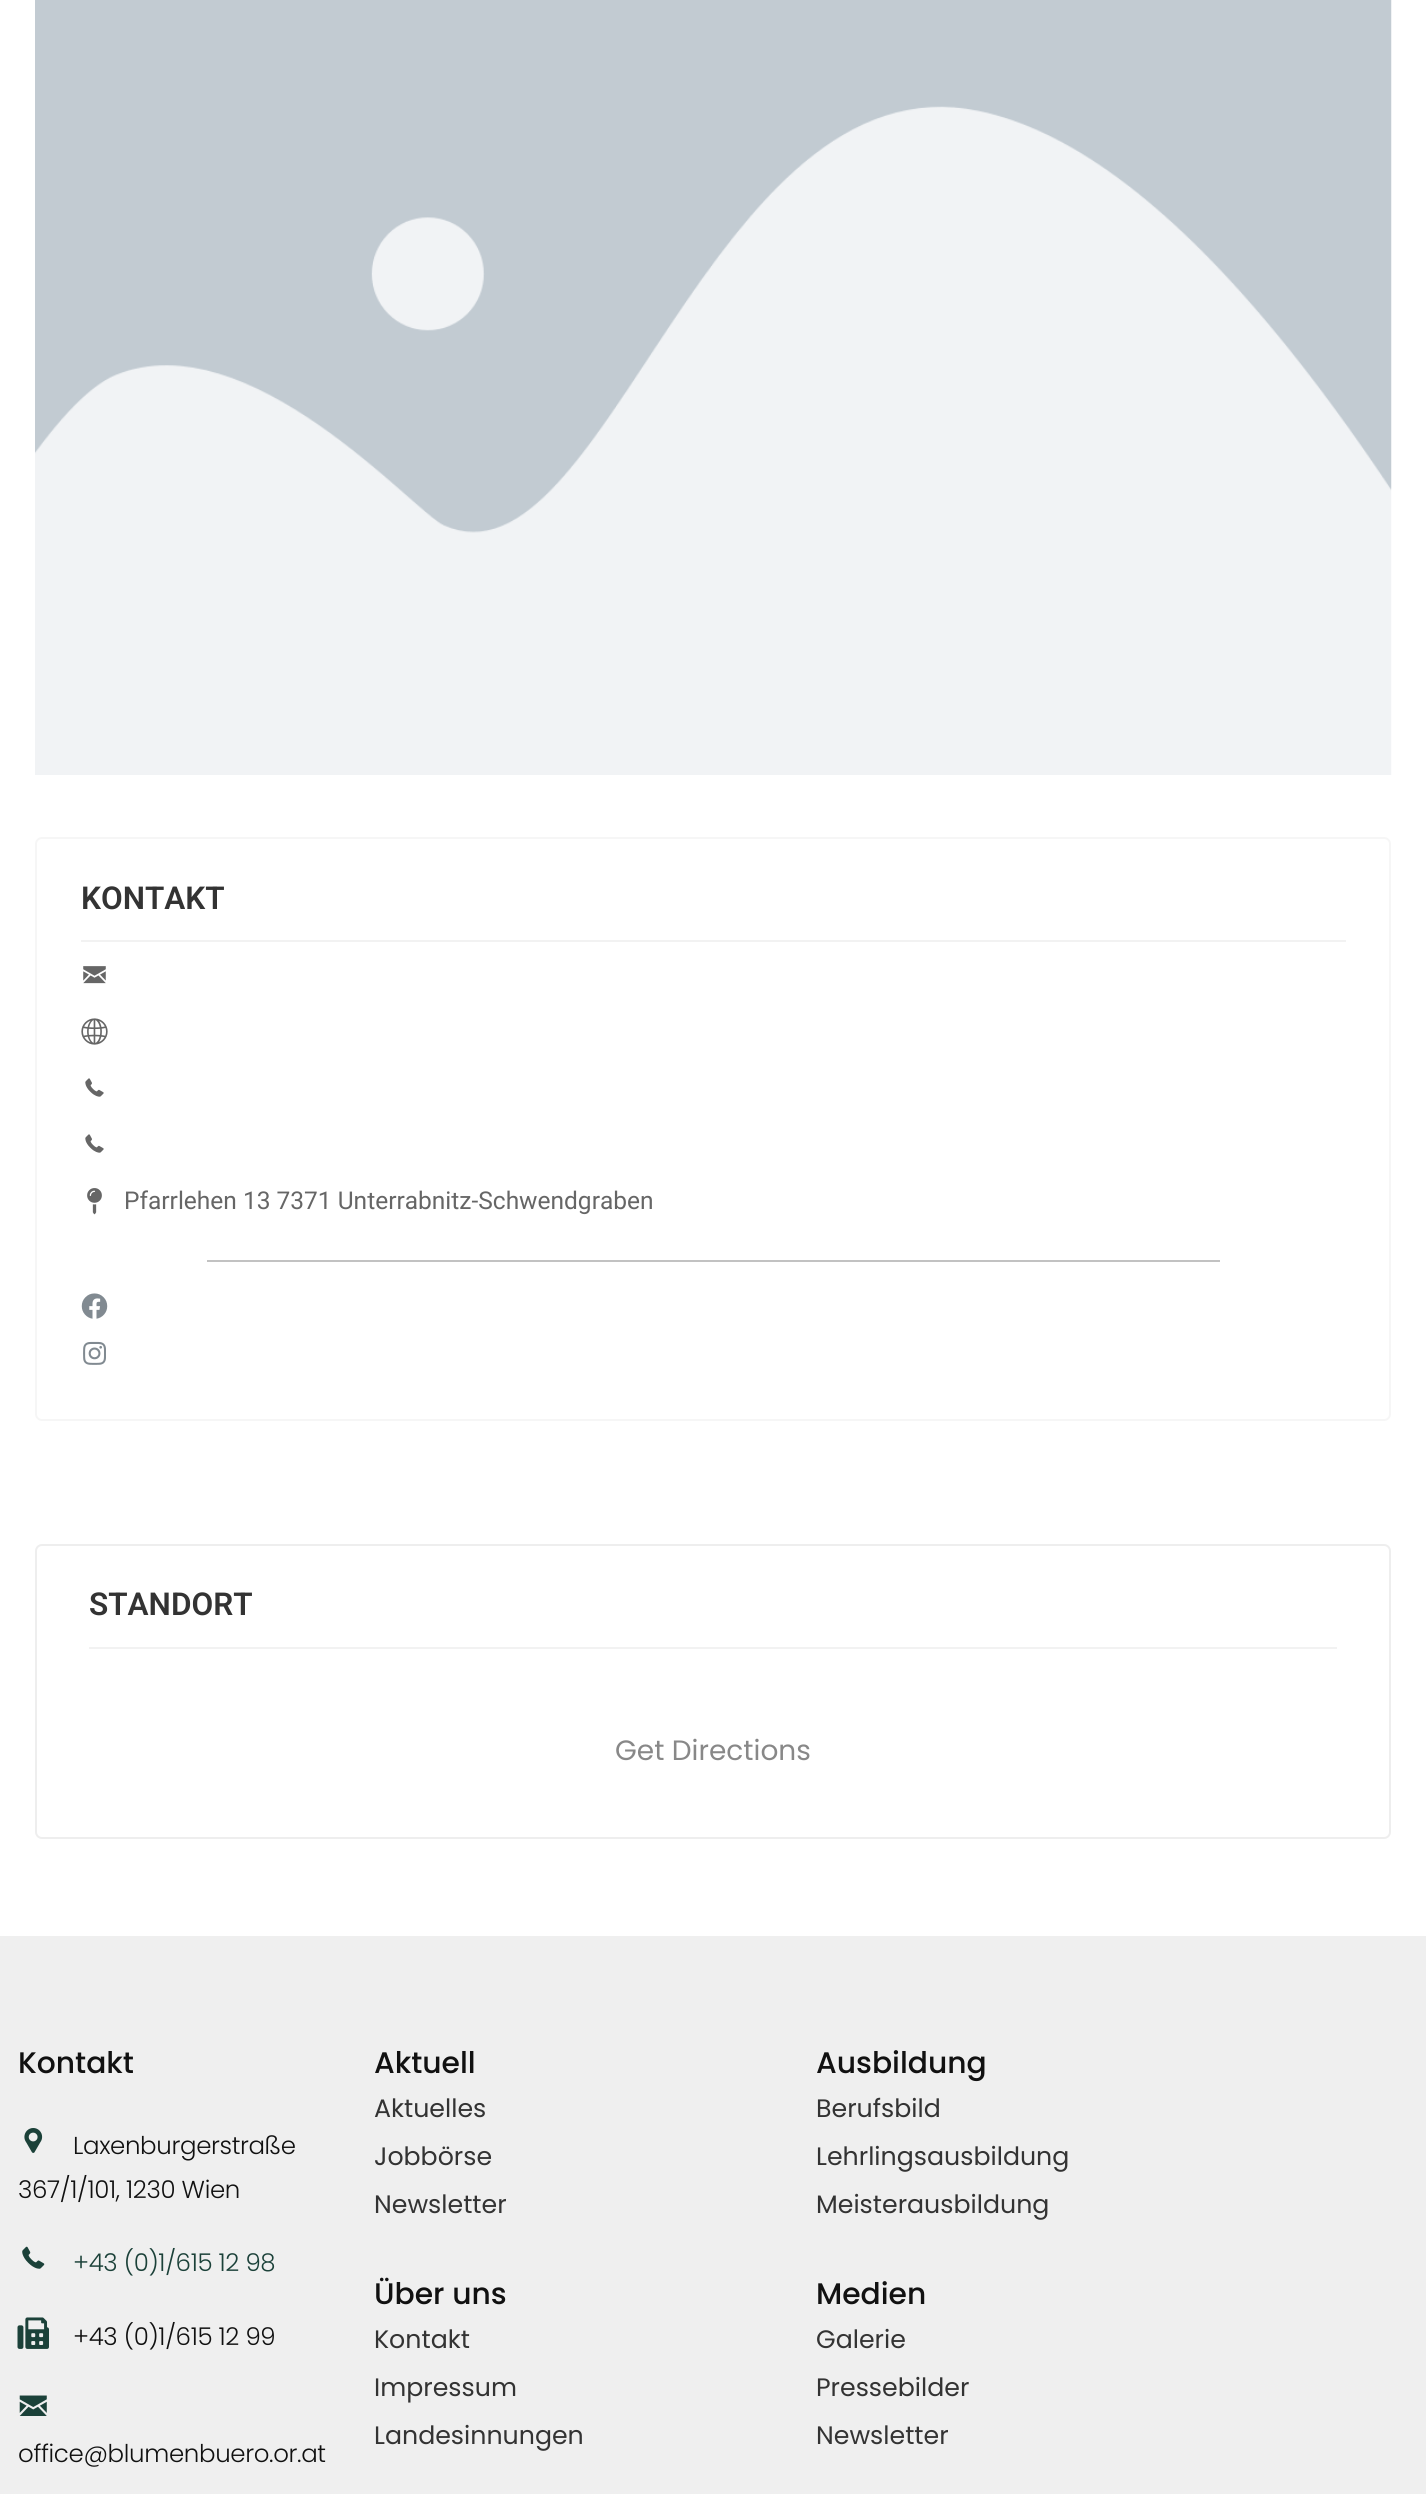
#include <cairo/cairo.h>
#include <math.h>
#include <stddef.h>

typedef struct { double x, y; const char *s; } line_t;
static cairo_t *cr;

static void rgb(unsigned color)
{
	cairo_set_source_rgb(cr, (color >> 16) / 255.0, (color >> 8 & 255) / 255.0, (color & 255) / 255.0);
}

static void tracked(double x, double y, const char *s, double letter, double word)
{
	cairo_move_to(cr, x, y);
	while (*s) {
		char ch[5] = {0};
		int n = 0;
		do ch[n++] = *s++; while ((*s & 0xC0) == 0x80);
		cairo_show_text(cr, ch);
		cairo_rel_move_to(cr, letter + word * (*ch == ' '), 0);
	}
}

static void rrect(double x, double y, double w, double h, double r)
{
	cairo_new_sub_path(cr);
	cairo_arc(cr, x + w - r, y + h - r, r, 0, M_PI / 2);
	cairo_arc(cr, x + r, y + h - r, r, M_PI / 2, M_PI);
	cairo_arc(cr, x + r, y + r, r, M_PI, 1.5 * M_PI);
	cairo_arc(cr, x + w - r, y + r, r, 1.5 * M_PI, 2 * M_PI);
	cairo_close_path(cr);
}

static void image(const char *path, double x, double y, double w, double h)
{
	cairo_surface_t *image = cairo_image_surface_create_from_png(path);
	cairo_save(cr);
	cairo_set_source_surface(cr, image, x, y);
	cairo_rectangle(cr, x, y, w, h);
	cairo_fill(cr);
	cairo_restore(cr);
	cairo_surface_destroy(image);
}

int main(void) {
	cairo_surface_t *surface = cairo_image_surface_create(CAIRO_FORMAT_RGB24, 1426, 2494);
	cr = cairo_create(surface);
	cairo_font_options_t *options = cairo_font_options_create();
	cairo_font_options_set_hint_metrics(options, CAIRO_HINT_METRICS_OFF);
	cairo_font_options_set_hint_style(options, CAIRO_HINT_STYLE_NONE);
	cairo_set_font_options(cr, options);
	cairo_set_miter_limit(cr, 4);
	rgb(0xffffff);
	cairo_paint(cr);
	image("img/1.png", 35, 0, 1357, 775);
	rrect(36, 838, 1354, 582, 6);
	rgb(0xf6f6f6);
	cairo_stroke(cr);
	rgb(0xf2f2f2);
	cairo_rectangle(cr, 81, 940, 1265, 2);
	cairo_fill(cr);
	image("img/2.png", 83, 966, 23, 18);
	image("img/3.png", 81, 1018, 27, 27);
	image("img/4.png", 85, 1078, 19, 19);
	image("img/4.png", 85, 1134, 19, 19);
	image("img/5.png", 87, 1188, 15, 27);
	rgb(0xc2c2c2);
	cairo_rectangle(cr, 207, 1260, 1013, 2);
	cairo_fill(cr);
	image("img/6.png", 81, 1293, 27, 26);
	image("img/7.png", 83, 1341, 23, 24);
	rrect(36, 1545, 1354, 293, 6);
	rgb(0xeeeeee);
	cairo_stroke(cr);
	rgb(0xf2f2f2);
	cairo_rectangle(cr, 89, 1647, 1248, 2);
	cairo_fill(cr);
	rgb(0xefefef);
	cairo_rectangle(cr, 0, 1936, 1426, 558);
	cairo_fill(cr);
	image("img/8.png", 24, 2128, 19, 25);
	image("img/9.png", 22, 2246, 23, 23);
	image("img/10.png", 17, 2317, 32, 32);
	image("img/11.png", 19, 2395, 28, 21);
	cairo_select_font_face(cr, "Roboto SemiBold", CAIRO_FONT_SLANT_NORMAL, CAIRO_FONT_WEIGHT_NORMAL);
	cairo_set_font_size(cr, 31.5);
	rgb(0x333333);
	cairo_move_to(cr, 81, 909);
	cairo_show_text(cr, "KONTAKT");
	cairo_select_font_face(cr, "Roboto", CAIRO_FONT_SLANT_NORMAL, CAIRO_FONT_WEIGHT_NORMAL);
	cairo_set_font_size(cr, 24.5);
	rgb(0x666666);
	cairo_move_to(cr, 124, 1209);
	cairo_show_text(cr, "Pfarrlehen 13 7371 Unterrabnitz-Schwendgraben");
	cairo_select_font_face(cr, "Roboto SemiBold", CAIRO_FONT_SLANT_NORMAL, CAIRO_FONT_WEIGHT_NORMAL);
	cairo_set_font_size(cr, 31.5);
	rgb(0x333333);
	cairo_move_to(cr, 89, 1615);
	cairo_show_text(cr, "STANDORT");
	cairo_select_font_face(cr, "Poppins", CAIRO_FONT_SLANT_NORMAL, CAIRO_FONT_WEIGHT_NORMAL);
	cairo_set_font_size(cr, 28);
	rgb(0x888888);
	cairo_move_to(cr, 615, 1760);
	cairo_show_text(cr, "Get Directions");
	cairo_select_font_face(cr, "Poppins Medium", CAIRO_FONT_SLANT_NORMAL, CAIRO_FONT_WEIGHT_NORMAL);
	cairo_set_font_size(cr, 29.75);
	rgb(0x111111);
	cairo_move_to(cr, 18, 2073);
	cairo_show_text(cr, "Kontakt");
	cairo_select_font_face(cr, "Poppins Light", CAIRO_FONT_SLANT_NORMAL, CAIRO_FONT_WEIGHT_NORMAL);
	cairo_set_font_size(cr, 24.5);
	tracked(73, 2154, "Laxenburgerstraße", -0.35, 0);
	tracked(18, 2198, "367/1/101, 1230 Wien", -0.35, 0);
	rgb(0x1b4139);
	tracked(73, 2271, "+43 (0)1/615 12 98", -0.35, 0);
	rgb(0x111111);
	tracked(73, 2345, "+43 (0)1/615 12 99", -0.35, 0);
	tracked(18, 2462, "office@blumenbuero.or.at", -0.35, 0);
	cairo_select_font_face(cr, "Poppins Medium", CAIRO_FONT_SLANT_NORMAL, CAIRO_FONT_WEIGHT_NORMAL);
	cairo_set_font_size(cr, 29.75);
	cairo_move_to(cr, 374, 2073);
	cairo_show_text(cr, "Aktuell");
	cairo_select_font_face(cr, "Poppins", CAIRO_FONT_SLANT_NORMAL, CAIRO_FONT_WEIGHT_NORMAL);
	cairo_set_font_size(cr, 25.25);
	rgb(0x333333);
	{
		static const line_t items[] = {
			{374, 2117, "Aktuelles"},
			{374, 2165, "Jobbörse"},
			{374, 2213, "Newsletter"},
		};
		for (size_t i = 0; i < sizeof items / sizeof *items; i++) {
			cairo_move_to(cr, items[i].x, items[i].y);
			cairo_show_text(cr, items[i].s);
		}
	}
	cairo_select_font_face(cr, "Poppins Medium", CAIRO_FONT_SLANT_NORMAL, CAIRO_FONT_WEIGHT_NORMAL);
	cairo_set_font_size(cr, 29.75);
	rgb(0x111111);
	cairo_move_to(cr, 374, 2304);
	cairo_show_text(cr, "Über uns");
	cairo_select_font_face(cr, "Poppins", CAIRO_FONT_SLANT_NORMAL, CAIRO_FONT_WEIGHT_NORMAL);
	cairo_set_font_size(cr, 25.25);
	rgb(0x333333);
	{
		static const line_t items[] = {
			{374, 2348, "Kontakt"},
			{374, 2396, "Impressum"},
			{374, 2444, "Landesinnungen"},
		};
		for (size_t i = 0; i < sizeof items / sizeof *items; i++) {
			cairo_move_to(cr, items[i].x, items[i].y);
			cairo_show_text(cr, items[i].s);
		}
	}
	cairo_select_font_face(cr, "Poppins Medium", CAIRO_FONT_SLANT_NORMAL, CAIRO_FONT_WEIGHT_NORMAL);
	cairo_set_font_size(cr, 29.75);
	rgb(0x111111);
	cairo_move_to(cr, 816, 2073);
	cairo_show_text(cr, "Ausbildung");
	cairo_select_font_face(cr, "Poppins", CAIRO_FONT_SLANT_NORMAL, CAIRO_FONT_WEIGHT_NORMAL);
	cairo_set_font_size(cr, 25.25);
	rgb(0x333333);
	{
		static const line_t items[] = {
			{816, 2117, "Berufsbild"},
			{816, 2165, "Lehrlingsausbildung"},
			{816, 2213, "Meisterausbildung"},
		};
		for (size_t i = 0; i < sizeof items / sizeof *items; i++) {
			cairo_move_to(cr, items[i].x, items[i].y);
			cairo_show_text(cr, items[i].s);
		}
	}
	cairo_select_font_face(cr, "Poppins Medium", CAIRO_FONT_SLANT_NORMAL, CAIRO_FONT_WEIGHT_NORMAL);
	cairo_set_font_size(cr, 29.75);
	rgb(0x111111);
	cairo_move_to(cr, 816, 2304);
	cairo_show_text(cr, "Medien");
	cairo_select_font_face(cr, "Poppins", CAIRO_FONT_SLANT_NORMAL, CAIRO_FONT_WEIGHT_NORMAL);
	cairo_set_font_size(cr, 25.25);
	rgb(0x333333);
	{
		static const line_t items[] = {
			{816, 2348, "Galerie"},
			{816, 2396, "Pressebilder"},
			{816, 2444, "Newsletter"},
		};
		for (size_t i = 0; i < sizeof items / sizeof *items; i++) {
			cairo_move_to(cr, items[i].x, items[i].y);
			cairo_show_text(cr, items[i].s);
		}
	}
	cairo_surface_write_to_png(surface, "page.png");
	cairo_font_options_destroy(options);
	cairo_destroy(cr);
	cairo_surface_destroy(surface);
	return 0;
}
